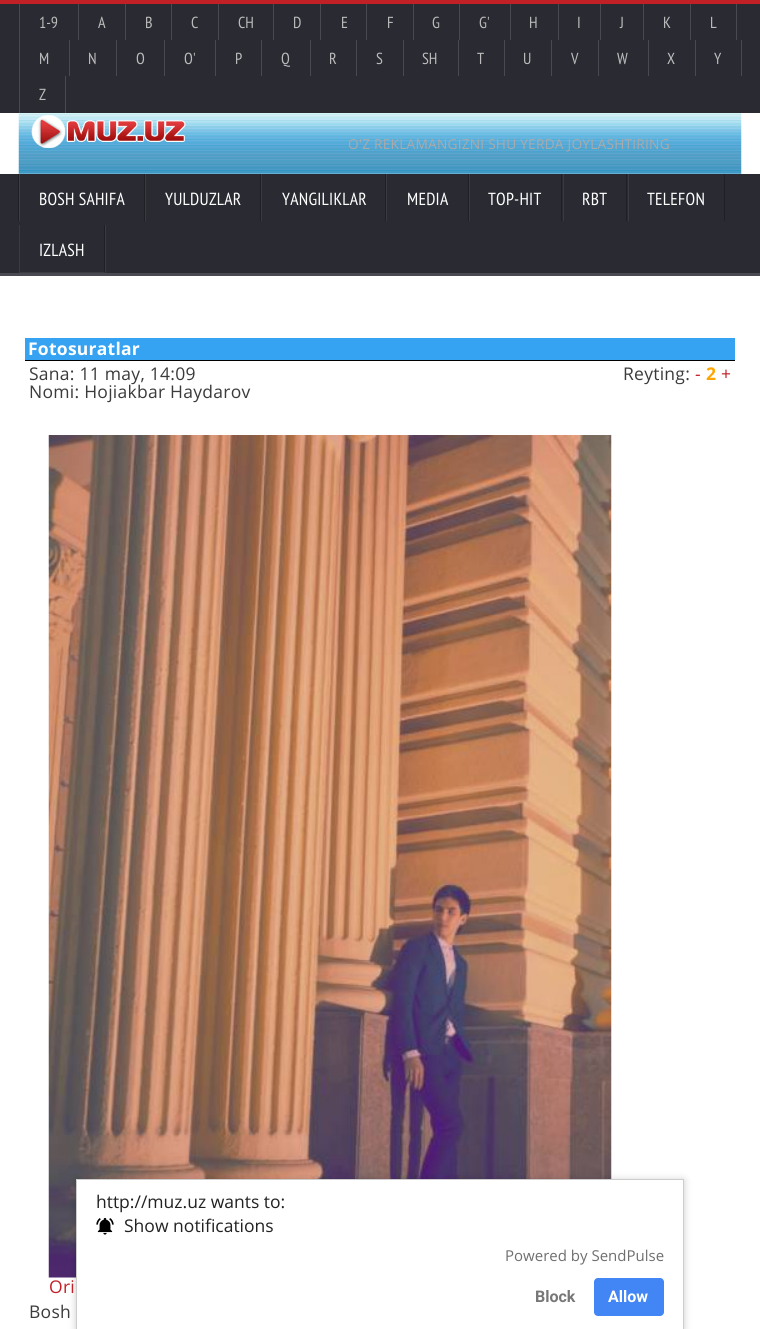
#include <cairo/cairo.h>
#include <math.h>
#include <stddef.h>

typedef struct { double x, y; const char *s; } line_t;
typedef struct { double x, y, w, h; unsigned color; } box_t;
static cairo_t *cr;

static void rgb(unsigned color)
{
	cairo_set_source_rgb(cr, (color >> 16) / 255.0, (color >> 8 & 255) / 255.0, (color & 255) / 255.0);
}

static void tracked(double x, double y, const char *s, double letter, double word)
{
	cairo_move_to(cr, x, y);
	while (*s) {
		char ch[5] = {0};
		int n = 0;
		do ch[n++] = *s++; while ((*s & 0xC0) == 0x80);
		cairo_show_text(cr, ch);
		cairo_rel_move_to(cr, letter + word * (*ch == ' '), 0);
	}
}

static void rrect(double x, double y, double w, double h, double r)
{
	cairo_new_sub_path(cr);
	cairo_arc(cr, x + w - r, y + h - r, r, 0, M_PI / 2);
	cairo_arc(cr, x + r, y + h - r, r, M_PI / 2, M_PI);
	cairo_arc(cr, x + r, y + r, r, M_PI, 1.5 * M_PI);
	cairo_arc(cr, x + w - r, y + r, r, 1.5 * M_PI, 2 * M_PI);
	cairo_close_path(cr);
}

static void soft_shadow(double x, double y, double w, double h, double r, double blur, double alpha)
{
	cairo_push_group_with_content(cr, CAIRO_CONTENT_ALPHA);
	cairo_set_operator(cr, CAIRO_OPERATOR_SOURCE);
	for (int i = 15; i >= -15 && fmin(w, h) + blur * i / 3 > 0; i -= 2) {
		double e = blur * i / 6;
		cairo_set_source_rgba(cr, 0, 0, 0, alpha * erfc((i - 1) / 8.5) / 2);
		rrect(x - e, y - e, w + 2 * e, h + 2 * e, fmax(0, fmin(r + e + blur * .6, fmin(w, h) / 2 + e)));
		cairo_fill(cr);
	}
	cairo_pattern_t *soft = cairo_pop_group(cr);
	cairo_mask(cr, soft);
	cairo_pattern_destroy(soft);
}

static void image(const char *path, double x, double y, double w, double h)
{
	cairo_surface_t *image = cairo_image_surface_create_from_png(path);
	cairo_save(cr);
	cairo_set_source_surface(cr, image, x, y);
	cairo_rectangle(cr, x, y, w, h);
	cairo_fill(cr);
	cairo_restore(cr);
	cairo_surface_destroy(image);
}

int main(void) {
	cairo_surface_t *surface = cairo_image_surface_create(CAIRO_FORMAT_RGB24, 760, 1329);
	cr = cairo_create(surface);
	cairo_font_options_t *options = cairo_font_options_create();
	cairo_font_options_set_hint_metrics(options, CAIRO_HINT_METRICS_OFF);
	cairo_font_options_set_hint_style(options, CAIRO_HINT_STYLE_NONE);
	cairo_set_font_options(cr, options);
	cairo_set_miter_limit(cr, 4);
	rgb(0xffffff);
	cairo_paint(cr);
	{
		static const box_t items[] = {
			{0, 4, 760, 109, 0x292a32},
			{0, 0, 760, 4, 0xc12026},
			{19, 4, 1, 109, 0x494a51},
			{78, 4, 1, 36, 0x494a51},
			{125, 4, 1, 36, 0x494a51},
			{171, 4, 1, 36, 0x494a51},
			{218, 4, 1, 36, 0x494a51},
			{273, 4, 1, 36, 0x494a51},
			{320, 4, 1, 36, 0x494a51},
			{366, 4, 1, 36, 0x494a51},
			{413, 4, 1, 36, 0x494a51},
			{459, 4, 1, 36, 0x494a51},
			{510, 4, 1, 36, 0x494a51},
			{558, 4, 1, 36, 0x494a51},
			{600, 4, 1, 36, 0x494a51},
			{643, 4, 1, 36, 0x494a51},
			{690, 4, 1, 36, 0x494a51},
			{736, 4, 1, 36, 0x494a51},
			{69, 40, 1, 36, 0x494a51},
			{116, 40, 1, 36, 0x494a51},
			{164, 40, 1, 36, 0x494a51},
			{215, 40, 1, 36, 0x494a51},
			{261, 40, 1, 36, 0x494a51},
			{310, 40, 1, 36, 0x494a51},
			{356, 40, 1, 36, 0x494a51},
			{403, 40, 1, 36, 0x494a51},
			{458, 40, 1, 36, 0x494a51},
			{504, 40, 1, 36, 0x494a51},
			{551, 40, 1, 36, 0x494a51},
			{598, 40, 1, 36, 0x494a51},
			{648, 40, 1, 36, 0x494a51},
			{695, 40, 1, 36, 0x494a51},
			{741, 40, 1, 36, 0x494a51},
			{65, 76, 1, 37, 0x494a51},
		};
		for (size_t i = 0; i < sizeof items / sizeof *items; i++) {
			rgb(items[i].color);
			cairo_rectangle(cr, items[i].x, items[i].y, items[i].w, items[i].h);
			cairo_fill(cr);
		}
	}
	image("img/1.png", 18, 113, 724, 61);
	image("img/2.png", 31, 115, 155, 33);
	rgb(0x292a32);
	cairo_rectangle(cr, 0, 174, 760, 102);
	cairo_fill(cr);
	cairo_set_source_rgba(cr, 1, 1, 1, 0.15);
	cairo_rectangle(cr, 0, 273, 760, 3);
	cairo_fill(cr);
	rgb(0x292a32);
	cairo_rectangle(cr, 19, 273, 722, 3);
	cairo_fill(cr);
	cairo_set_source_rgba(cr, 1, 1, 1, 0.15);
	cairo_rectangle(cr, 19, 273, 722, 3);
	cairo_fill(cr);
	rgb(0x1f2026);
	cairo_rectangle(cr, 18, 174, 1, 47);
	cairo_fill(cr);
	cairo_rectangle(cr, 144, 174, 1, 47);
	cairo_fill(cr);
	rgb(0x3e3f46);
	cairo_rectangle(cr, 19, 174, 1, 47);
	cairo_fill(cr);
	rgb(0x1f2026);
	cairo_rectangle(cr, 260, 174, 1, 47);
	cairo_fill(cr);
	rgb(0x3a3b42);
	cairo_rectangle(cr, 145, 174, 1, 47);
	cairo_fill(cr);
	rgb(0x1f2026);
	cairo_rectangle(cr, 385, 174, 1, 47);
	cairo_fill(cr);
	rgb(0x3a3b42);
	cairo_rectangle(cr, 261, 174, 1, 47);
	cairo_fill(cr);
	rgb(0x1f2026);
	cairo_rectangle(cr, 468, 174, 1, 47);
	cairo_fill(cr);
	rgb(0x3a3b42);
	cairo_rectangle(cr, 386, 174, 1, 47);
	cairo_fill(cr);
	rgb(0x1f2026);
	cairo_rectangle(cr, 561, 174, 1, 47);
	cairo_fill(cr);
	rgb(0x3a3b42);
	cairo_rectangle(cr, 469, 174, 1, 47);
	cairo_fill(cr);
	rgb(0x1f2026);
	cairo_rectangle(cr, 626, 174, 1, 47);
	cairo_fill(cr);
	rgb(0x3a3b42);
	cairo_rectangle(cr, 563, 174, 1, 47);
	cairo_fill(cr);
	rgb(0x1f2026);
	cairo_rectangle(cr, 724, 174, 1, 47);
	cairo_fill(cr);
	rgb(0x3a3b42);
	cairo_rectangle(cr, 628, 174, 1, 47);
	cairo_fill(cr);
	cairo_new_path(cr);
	cairo_move_to(cr, 20, 272);
	cairo_line_to(cr, 20, 273);
	cairo_line_to(cr, 106, 273);
	cairo_line_to(cr, 106, 225);
	cairo_line_to(cr, 105, 225);
	cairo_line_to(cr, 105, 272);
	cairo_close_path(cr);
	cairo_fill(cr);
	cairo_set_source_rgba(cr, 0, 0, 0, 0.25);
	cairo_rectangle(cr, 104, 225, 1, 48);
	cairo_fill(cr);
	rgb(0x3a3b42);
	cairo_rectangle(cr, 19, 225, 1, 48);
	cairo_fill(cr);
	rgb(0x35a2f2);
	cairo_rectangle(cr, 25, 338, 710, 22);
	cairo_fill(cr);
	rgb(0x000000);
	cairo_rectangle(cr, 25, 360, 710, 1);
	cairo_fill(cr);
	image("img/3.png", 48, 435, 564, 843);
	rgb(0x000000);
	soft_shadow(76, 1180, 608, 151, 0, 4, 0.2);
	rgb(0xffffff);
	cairo_rectangle(cr, 76.5, 1179.5, 607, 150);
	cairo_fill_preserve(cr);
	rgb(0xcdcdcd);
	cairo_set_line_width(cr, 1);
	cairo_stroke(cr);
	image("img/4.png", 96, 1218, 18, 17);
	rgb(0x4285f4);
	rrect(594, 1278, 70, 38, 4);
	cairo_fill(cr);
	cairo_select_font_face(cr, "PT Sans Narrow", CAIRO_FONT_SLANT_NORMAL, CAIRO_FONT_WEIGHT_NORMAL);
	cairo_set_font_size(cr, 16);
	rgb(0xbcbcbc);
	{
		static const line_t items[] = {
			{39, 28, "1-9"},
			{98, 28, "A"},
			{145, 28, "B"},
			{191, 28, "C"},
			{238, 28, "CH"},
			{293, 28, "D"},
			{341, 28, "E"},
			{387, 28, "F"},
			{432, 28, "G"},
			{479, 28, "G'"},
			{529, 28, "H"},
			{577, 28, "I"},
			{620, 28, "J"},
			{663, 28, "K"},
			{710, 28, "L"},
			{39, 64, "M"},
			{88, 64, "N"},
			{136, 64, "O"},
			{184, 64, "O'"},
			{235, 64, "P"},
			{281, 64, "Q"},
			{329, 64, "R"},
			{376, 64, "S"},
			{422, 64, "SH"},
			{477, 64, "T"},
			{523, 64, "U"},
			{571, 64, "V"},
			{617, 64, "W"},
			{667, 64, "X"},
			{714, 64, "Y"},
			{39, 100, "Z"},
		};
		for (size_t i = 0; i < sizeof items / sizeof *items; i++) {
			cairo_move_to(cr, items[i].x, items[i].y);
			cairo_show_text(cr, items[i].s);
		}
	}
	cairo_select_font_face(cr, "Open Sans", CAIRO_FONT_SLANT_NORMAL, CAIRO_FONT_WEIGHT_NORMAL);
	cairo_set_font_size(cr, 13.75);
	rgb(0xaaaaaa);
	tracked(348, 149, "O'Z REKLAMANGIZNI SHU YERDA JOYLASHTIRING", 0.2, 0);
	cairo_select_font_face(cr, "PT Sans Narrow", CAIRO_FONT_SLANT_NORMAL, CAIRO_FONT_WEIGHT_NORMAL);
	cairo_set_font_size(cr, 17.5);
	rgb(0xffffff);
	{
		static const line_t items[] = {
			{39, 205, "BOSH SAHIFA"},
			{165, 205, "YULDUZLAR"},
			{282, 205, "YANGILIKLAR"},
			{407, 205, "MEDIA"},
			{488, 205, "TOP-HIT"},
			{582, 205, "RBT"},
			{647, 205, "TELEFON"},
			{39, 256, "IZLASH"},
		};
		for (size_t i = 0; i < sizeof items / sizeof *items; i++) {
			tracked(items[i].x, items[i].y, items[i].s, 0.25, 0);
		}
	}
	cairo_select_font_face(cr, "Open Sans", CAIRO_FONT_SLANT_NORMAL, CAIRO_FONT_WEIGHT_BOLD);
	tracked(28, 355, "Fotosuratlar", 0.25, 0);
	cairo_select_font_face(cr, "Open Sans", CAIRO_FONT_SLANT_NORMAL, CAIRO_FONT_WEIGHT_NORMAL);
	rgb(0x3b3b3b);
	tracked(29, 380, "Sana: 11 may, 14:09", 0.25, 0);
	tracked(623, 380, "Reyting:", 0.25, 0);
	rgb(0xc12026);
	tracked(695, 380, "-", 0.25, 0);
	cairo_select_font_face(cr, "Open Sans", CAIRO_FONT_SLANT_NORMAL, CAIRO_FONT_WEIGHT_BOLD);
	rgb(0xffa500);
	tracked(706, 380, "2", 0.25, 0);
	cairo_select_font_face(cr, "Open Sans", CAIRO_FONT_SLANT_NORMAL, CAIRO_FONT_WEIGHT_NORMAL);
	rgb(0xc12026);
	tracked(721, 380, "+", 0.25, 0);
	rgb(0x3b3b3b);
	tracked(29, 398, "Nomi: Hojiakbar Haydarov", 0.25, 0);
	rgb(0xc12026);
	tracked(49, 1293, "Ori", 0.25, 0);
	rgb(0x3b3b3b);
	tracked(29, 1318, "Bosh", 0.25, 0);
	rgb(0x222222);
	cairo_move_to(cr, 96, 1208);
	cairo_show_text(cr, "http://muz.uz wants to:");
	cairo_move_to(cr, 124, 1232);
	cairo_show_text(cr, "Show notifications");
	cairo_set_font_size(cr, 15);
	rgb(0x6f6f6f);
	cairo_move_to(cr, 505, 1261);
	cairo_show_text(cr, "Powered by SendPulse");
	cairo_select_font_face(cr, "Roboto", CAIRO_FONT_SLANT_NORMAL, CAIRO_FONT_WEIGHT_BOLD);
	cairo_set_font_size(cr, 16);
	rgb(0x777777);
	cairo_move_to(cr, 535, 1302);
	cairo_show_text(cr, "Block");
	rgb(0xffffff);
	cairo_move_to(cr, 608, 1302);
	cairo_show_text(cr, "Allow");
	cairo_surface_write_to_png(surface, "page.png");
	cairo_font_options_destroy(options);
	cairo_destroy(cr);
	cairo_surface_destroy(surface);
	return 0;
}
